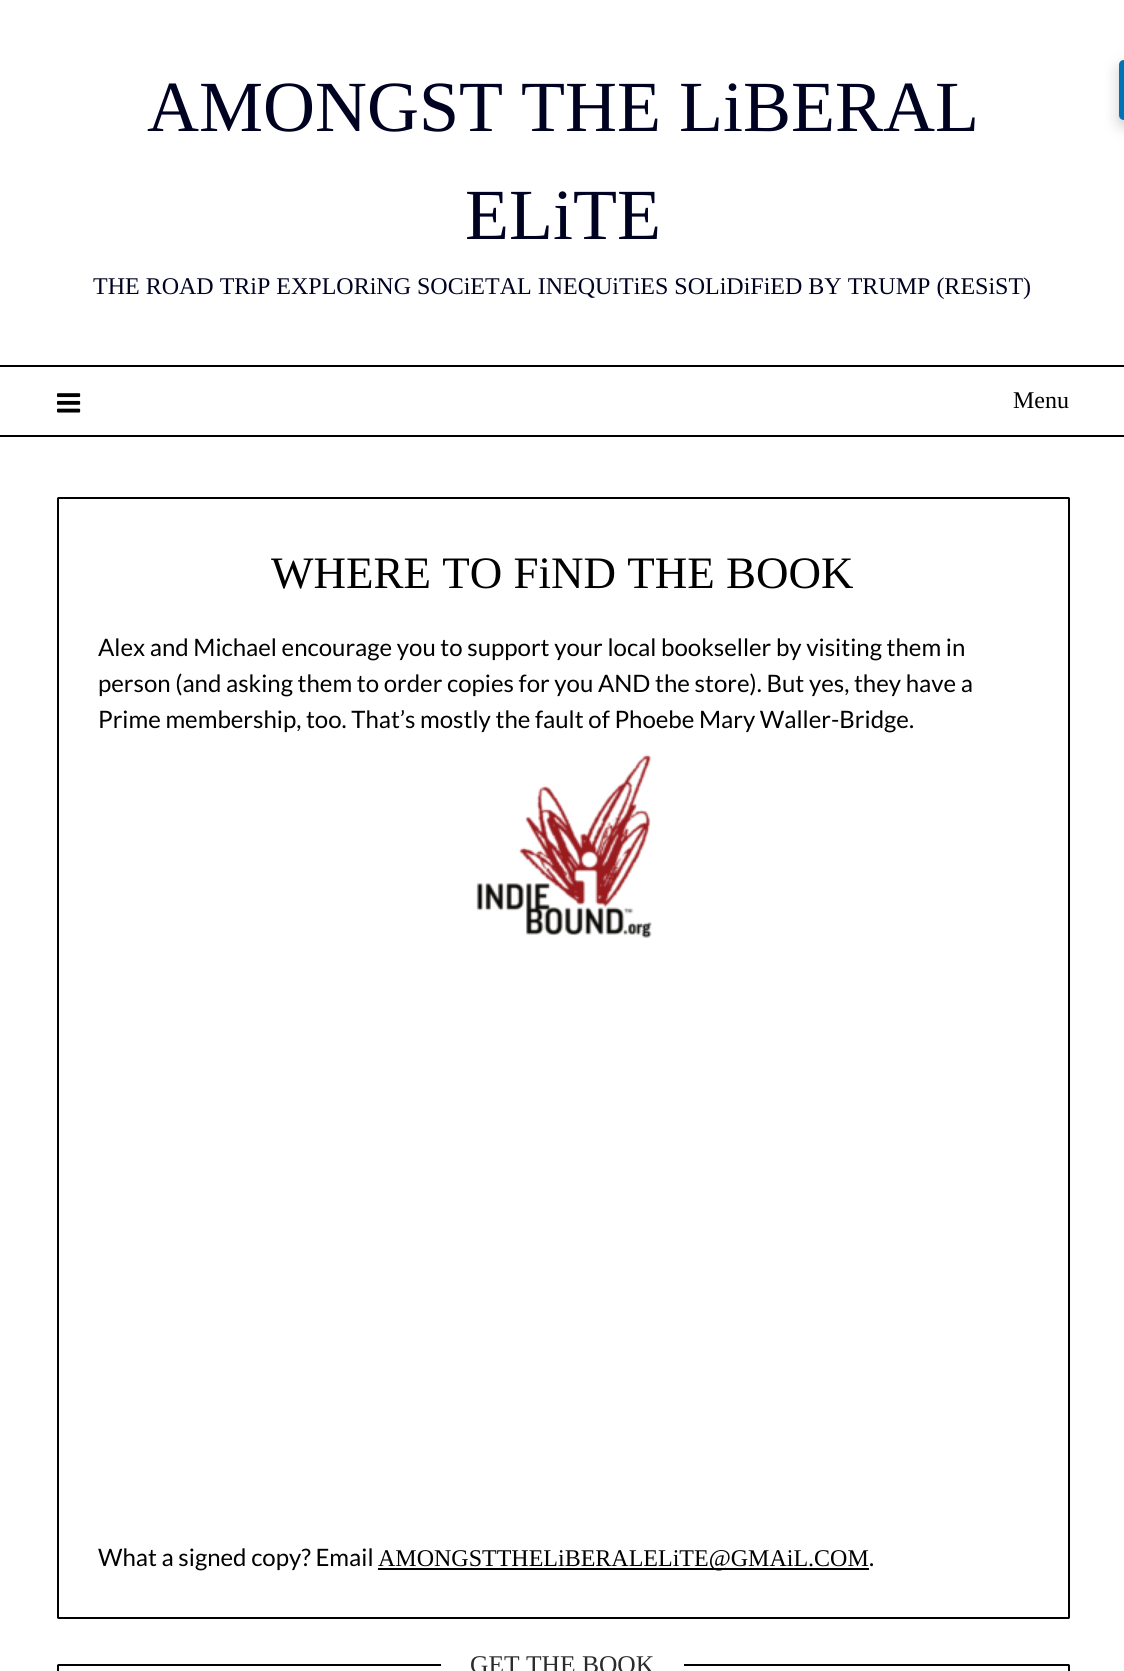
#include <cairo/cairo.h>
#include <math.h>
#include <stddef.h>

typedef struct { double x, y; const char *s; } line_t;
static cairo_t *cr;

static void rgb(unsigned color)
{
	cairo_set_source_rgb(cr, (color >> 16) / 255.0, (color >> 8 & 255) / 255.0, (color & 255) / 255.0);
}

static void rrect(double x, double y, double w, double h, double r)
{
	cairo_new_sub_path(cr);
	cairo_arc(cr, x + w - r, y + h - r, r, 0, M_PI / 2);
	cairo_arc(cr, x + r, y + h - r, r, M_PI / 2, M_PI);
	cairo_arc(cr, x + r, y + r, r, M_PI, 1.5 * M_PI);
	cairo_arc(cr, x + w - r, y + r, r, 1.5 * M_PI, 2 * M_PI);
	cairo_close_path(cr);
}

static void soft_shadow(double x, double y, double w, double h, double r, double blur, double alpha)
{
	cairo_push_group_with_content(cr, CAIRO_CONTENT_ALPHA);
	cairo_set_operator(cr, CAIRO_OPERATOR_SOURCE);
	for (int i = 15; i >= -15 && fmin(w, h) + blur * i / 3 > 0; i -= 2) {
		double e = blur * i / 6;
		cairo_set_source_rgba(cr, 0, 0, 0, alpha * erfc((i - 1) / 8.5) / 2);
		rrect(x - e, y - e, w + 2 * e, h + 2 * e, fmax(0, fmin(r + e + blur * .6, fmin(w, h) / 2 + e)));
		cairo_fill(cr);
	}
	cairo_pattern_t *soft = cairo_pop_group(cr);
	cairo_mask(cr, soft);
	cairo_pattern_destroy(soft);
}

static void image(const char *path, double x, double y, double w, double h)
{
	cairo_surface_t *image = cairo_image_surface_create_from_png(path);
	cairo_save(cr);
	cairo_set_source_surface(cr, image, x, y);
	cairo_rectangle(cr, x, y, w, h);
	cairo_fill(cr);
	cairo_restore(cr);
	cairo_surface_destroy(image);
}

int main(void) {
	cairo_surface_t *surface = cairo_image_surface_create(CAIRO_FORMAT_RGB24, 1124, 1671);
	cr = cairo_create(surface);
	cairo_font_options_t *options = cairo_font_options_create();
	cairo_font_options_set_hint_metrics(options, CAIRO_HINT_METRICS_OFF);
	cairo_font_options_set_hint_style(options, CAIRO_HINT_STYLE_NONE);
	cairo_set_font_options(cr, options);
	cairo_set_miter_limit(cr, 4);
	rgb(0xffffff);
	cairo_paint(cr);
	rgb(0x000000);
	cairo_rectangle(cr, 0, 365, 1124, 2);
	cairo_fill(cr);
	cairo_rectangle(cr, 0, 435, 1124, 2);
	cairo_fill(cr);
	image("img/1.png", 57, 393, 24, 20);
	rrect(58, 498, 1011, 1120, 0.5);
	cairo_stroke(cr);
	image("img/2.png", 476, 754, 176, 184);
	cairo_rectangle(cr, 378, 1568, 491, 2);
	cairo_fill(cr);
	rrect(58, 1665, 1011, 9, 0.5);
	cairo_stroke(cr);
	rgb(0xffffff);
	cairo_rectangle(cr, 441, 1664, 243, 2);
	cairo_fill(cr);
	rgb(0x000000);
	soft_shadow(1119, 66, 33, 60, 5, 7.5, 0.2);
	rgb(0x0073b7);
	cairo_new_path(cr);
	cairo_move_to(cr, 1124, 60);
	cairo_line_to(cr, 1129, 60);
	cairo_line_to(cr, 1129, 120);
	cairo_line_to(cr, 1124, 120);
	cairo_curve_to(cr, 1121, 120, 1119, 118, 1119, 115);
	cairo_line_to(cr, 1119, 65);
	cairo_curve_to(cr, 1119, 62, 1121, 60, 1124, 60);
	cairo_close_path(cr);
	cairo_fill(cr);
	cairo_select_font_face(cr, "Liberation Serif", CAIRO_FONT_SLANT_NORMAL, CAIRO_FONT_WEIGHT_NORMAL);
	cairo_set_font_size(cr, 72);
	rgb(0x000222);
	cairo_move_to(cr, 147, 131);
	cairo_show_text(cr, "AMONGST THE LiBERAL");
	cairo_move_to(cr, 465, 239);
	cairo_show_text(cr, "ELiTE");
	cairo_set_font_size(cr, 24);
	cairo_move_to(cr, 93, 294);
	cairo_show_text(cr, "THE ROAD TRiP EXPLORiNG SOCiETAL INEQUiTiES SOLiDiFiED BY TRUMP (RESiST)");
	rgb(0x000000);
	cairo_move_to(cr, 1013, 408);
	cairo_show_text(cr, "Menu");
	cairo_set_font_size(cr, 45);
	cairo_move_to(cr, 271, 588);
	cairo_show_text(cr, "WHERE TO FiND THE BOOK");
	cairo_select_font_face(cr, "Lato", CAIRO_FONT_SLANT_NORMAL, CAIRO_FONT_WEIGHT_NORMAL);
	cairo_set_font_size(cr, 24);
	{
		static const line_t items[] = {
			{98, 656, "Alex and Michael encourage you to support your local bookseller by visiting them in"},
			{98, 692, "person (and asking them to order copies for you AND the store). But yes, they have a"},
			{98, 728, "Prime membership, too. That’s mostly the fault of Phoebe Mary Waller-Bridge."},
			{98, 1566, "What a signed copy? Email"},
		};
		for (size_t i = 0; i < sizeof items / sizeof *items; i++) {
			cairo_move_to(cr, items[i].x, items[i].y);
			cairo_show_text(cr, items[i].s);
		}
	}
	cairo_select_font_face(cr, "Liberation Serif", CAIRO_FONT_SLANT_NORMAL, CAIRO_FONT_WEIGHT_NORMAL);
	cairo_move_to(cr, 378, 1566);
	cairo_show_text(cr, "AMONGSTTHELiBERALELiTE@GMAiL.COM");
	cairo_select_font_face(cr, "Lato", CAIRO_FONT_SLANT_NORMAL, CAIRO_FONT_WEIGHT_NORMAL);
	cairo_move_to(cr, 869, 1566);
	cairo_show_text(cr, ".");
	cairo_select_font_face(cr, "Liberation Serif", CAIRO_FONT_SLANT_NORMAL, CAIRO_FONT_WEIGHT_NORMAL);
	cairo_set_font_size(cr, 25.5);
	rgb(0x2b2b2b);
	cairo_move_to(cr, 470, 1673);
	cairo_show_text(cr, "GET THE BOOK");
	cairo_surface_write_to_png(surface, "page.png");
	cairo_font_options_destroy(options);
	cairo_destroy(cr);
	cairo_surface_destroy(surface);
	return 0;
}
